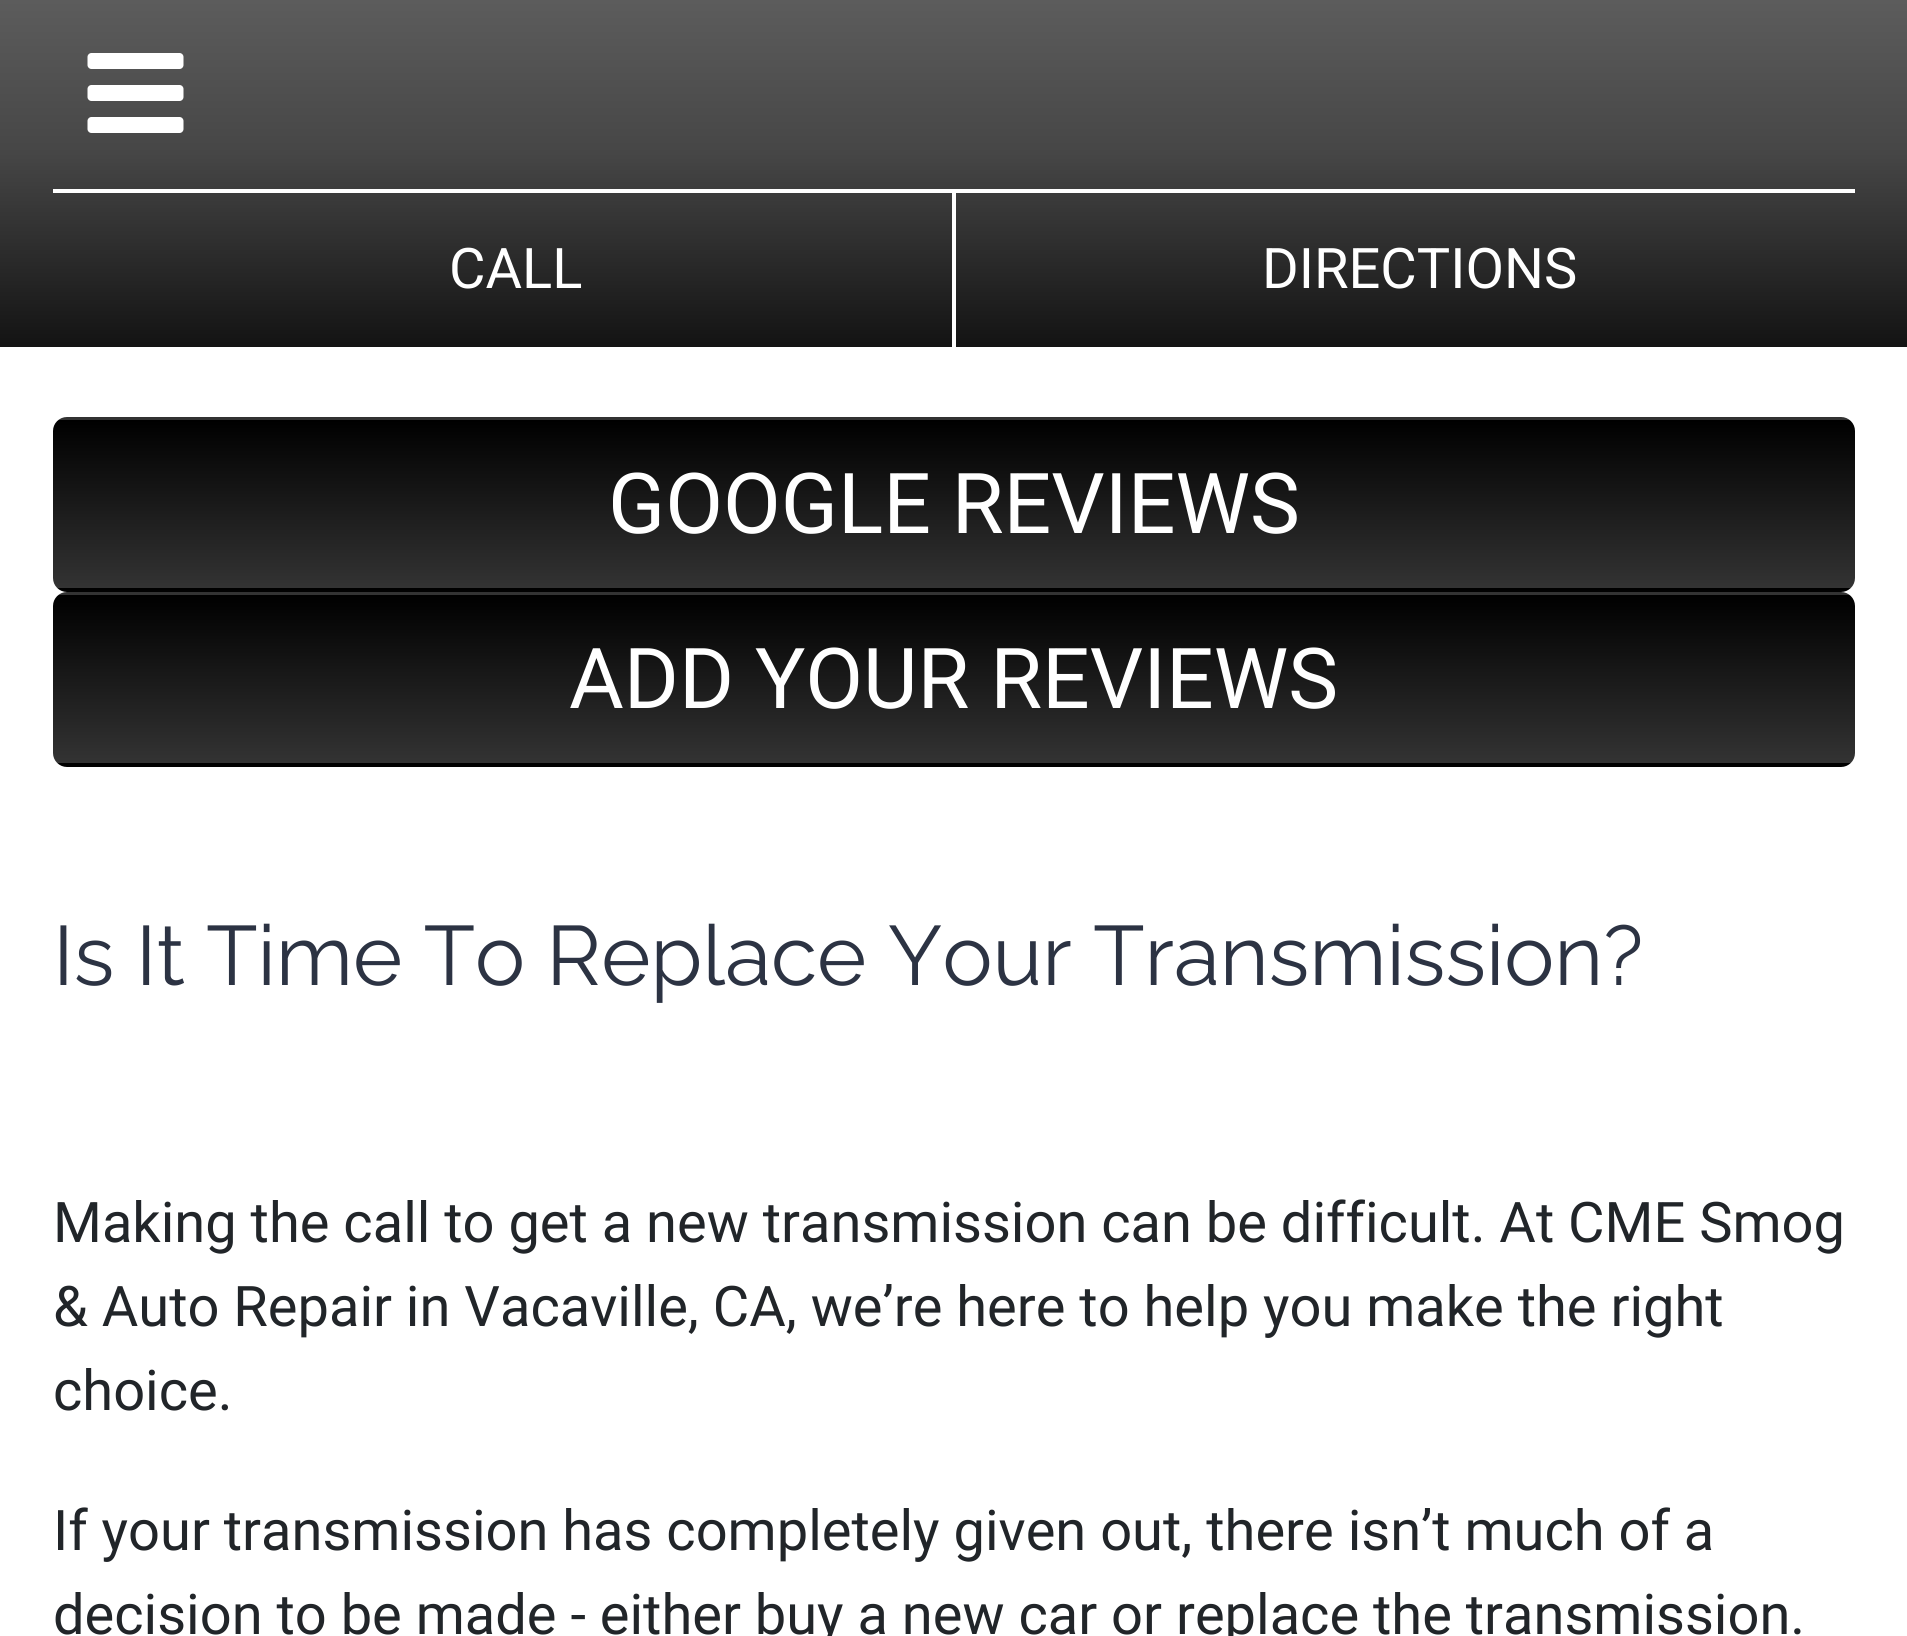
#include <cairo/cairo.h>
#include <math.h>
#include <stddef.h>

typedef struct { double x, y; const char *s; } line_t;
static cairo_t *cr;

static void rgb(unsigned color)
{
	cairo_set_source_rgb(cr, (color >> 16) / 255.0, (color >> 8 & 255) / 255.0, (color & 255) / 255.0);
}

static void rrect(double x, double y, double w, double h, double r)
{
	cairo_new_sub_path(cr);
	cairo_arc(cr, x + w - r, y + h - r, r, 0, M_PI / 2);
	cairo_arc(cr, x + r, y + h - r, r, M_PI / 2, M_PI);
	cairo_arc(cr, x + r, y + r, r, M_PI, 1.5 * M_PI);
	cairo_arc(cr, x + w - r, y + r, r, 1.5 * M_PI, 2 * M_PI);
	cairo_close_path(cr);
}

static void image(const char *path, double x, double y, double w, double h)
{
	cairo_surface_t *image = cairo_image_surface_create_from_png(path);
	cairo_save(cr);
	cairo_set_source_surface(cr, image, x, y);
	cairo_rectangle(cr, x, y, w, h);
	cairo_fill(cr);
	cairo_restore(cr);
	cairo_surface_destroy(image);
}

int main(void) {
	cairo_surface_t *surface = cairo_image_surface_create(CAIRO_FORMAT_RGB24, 1907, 1636);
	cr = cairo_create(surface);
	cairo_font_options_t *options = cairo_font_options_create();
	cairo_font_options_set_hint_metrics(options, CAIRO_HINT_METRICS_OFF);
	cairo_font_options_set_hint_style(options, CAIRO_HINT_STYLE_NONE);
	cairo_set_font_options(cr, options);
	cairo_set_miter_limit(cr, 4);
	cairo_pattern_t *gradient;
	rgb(0xffffff);
	cairo_paint(cr);
	gradient = cairo_pattern_create_linear(954, 347, 954, 0);
	cairo_pattern_add_color_stop_rgba(gradient, 0, 0.075, 0.075, 0.075, 1);
	cairo_pattern_add_color_stop_rgba(gradient, 0.56, 0.275, 0.275, 0.275, 1);
	cairo_pattern_add_color_stop_rgba(gradient, 1, 0.361, 0.361, 0.361, 1);
	cairo_set_source(cr, gradient);
	cairo_pattern_destroy(gradient);
	cairo_rectangle(cr, 0, 0, 1907, 347);
	cairo_fill(cr);
	image("img/1.png", 87, 53, 97, 80);
	rgb(0xffffff);
	cairo_rectangle(cr, 53, 189, 1802, 4);
	cairo_fill(cr);
	cairo_rectangle(cr, 952, 189, 4, 161);
	cairo_fill(cr);
	cairo_save(cr);
	rrect(53, 417, 1802, 175, 14);
	cairo_clip(cr);
	gradient = cairo_pattern_create_linear(954, 252, 954, 420);
	cairo_pattern_add_color_stop_rgba(gradient, 0, 0, 0, 0, 1);
	cairo_pattern_add_color_stop_rgba(gradient, 1, 0.2, 0.2, 0.2, 1);
	cairo_set_source(cr, gradient);
	cairo_pattern_destroy(gradient);
	cairo_rectangle(cr, 53, 417, 1802, 3);
	cairo_fill(cr);
	gradient = cairo_pattern_create_linear(954, 420, 954, 588);
	cairo_pattern_add_color_stop_rgba(gradient, 0, 0, 0, 0, 1);
	cairo_pattern_add_color_stop_rgba(gradient, 1, 0.2, 0.2, 0.2, 1);
	cairo_set_source(cr, gradient);
	cairo_pattern_destroy(gradient);
	cairo_rectangle(cr, 53, 420, 1802, 168);
	cairo_fill(cr);
	gradient = cairo_pattern_create_linear(954, 588, 954, 756);
	cairo_pattern_add_color_stop_rgba(gradient, 0, 0, 0, 0, 1);
	cairo_pattern_add_color_stop_rgba(gradient, 1, 0.2, 0.2, 0.2, 1);
	cairo_set_source(cr, gradient);
	cairo_pattern_destroy(gradient);
	cairo_rectangle(cr, 53, 588, 1802, 4);
	cairo_fill(cr);
	cairo_restore(cr);
	cairo_save(cr);
	rrect(53, 592, 1802, 175, 14);
	cairo_clip(cr);
	gradient = cairo_pattern_create_linear(954, 427, 954, 595);
	cairo_pattern_add_color_stop_rgba(gradient, 0, 0, 0, 0, 1);
	cairo_pattern_add_color_stop_rgba(gradient, 1, 0.2, 0.2, 0.2, 1);
	cairo_set_source(cr, gradient);
	cairo_pattern_destroy(gradient);
	cairo_rectangle(cr, 53, 592, 1802, 3);
	cairo_fill(cr);
	gradient = cairo_pattern_create_linear(954, 595, 954, 763);
	cairo_pattern_add_color_stop_rgba(gradient, 0, 0, 0, 0, 1);
	cairo_pattern_add_color_stop_rgba(gradient, 1, 0.2, 0.2, 0.2, 1);
	cairo_set_source(cr, gradient);
	cairo_pattern_destroy(gradient);
	cairo_rectangle(cr, 53, 595, 1802, 168);
	cairo_fill(cr);
	gradient = cairo_pattern_create_linear(954, 763, 954, 931);
	cairo_pattern_add_color_stop_rgba(gradient, 0, 0, 0, 0, 1);
	cairo_pattern_add_color_stop_rgba(gradient, 1, 0.2, 0.2, 0.2, 1);
	cairo_set_source(cr, gradient);
	cairo_pattern_destroy(gradient);
	cairo_rectangle(cr, 53, 763, 1802, 4);
	cairo_fill(cr);
	cairo_restore(cr);
	cairo_select_font_face(cr, "Roboto", CAIRO_FONT_SLANT_NORMAL, CAIRO_FONT_WEIGHT_NORMAL);
	cairo_set_font_size(cr, 56);
	cairo_move_to(cr, 449, 288);
	cairo_show_text(cr, "CALL");
	cairo_move_to(cr, 1262, 288);
	cairo_show_text(cr, "DIRECTIONS");
	cairo_set_font_size(cr, 84);
	cairo_move_to(cr, 608, 533);
	cairo_show_text(cr, "GOOGLE REVIEWS");
	cairo_move_to(cr, 569, 708);
	cairo_show_text(cr, "ADD YOUR REVIEWS");
	cairo_select_font_face(cr, "Raleway", CAIRO_FONT_SLANT_NORMAL, CAIRO_FONT_WEIGHT_NORMAL);
	rgb(0x2c3343);
	cairo_move_to(cr, 53, 985);
	cairo_show_text(cr, "Is It Time To Replace Your Transmission?");
	cairo_select_font_face(cr, "Roboto", CAIRO_FONT_SLANT_NORMAL, CAIRO_FONT_WEIGHT_NORMAL);
	cairo_set_font_size(cr, 56);
	rgb(0x212529);
	{
		static const line_t items[] = {
			{53, 1242, "Making the call to get a new transmission can be difficult. At CME Smog"},
			{53, 1326, "& Auto Repair in Vacaville, CA, we’re here to help you make the right"},
			{53, 1410, "choice."},
			{53, 1550, "If your transmission has completely given out, there isn’t much of a"},
			{53, 1634, "decision to be made - either buy a new car or replace the transmission."},
		};
		for (size_t i = 0; i < sizeof items / sizeof *items; i++) {
			cairo_move_to(cr, items[i].x, items[i].y);
			cairo_show_text(cr, items[i].s);
		}
	}
	cairo_surface_write_to_png(surface, "page.png");
	cairo_font_options_destroy(options);
	cairo_destroy(cr);
	cairo_surface_destroy(surface);
	return 0;
}
